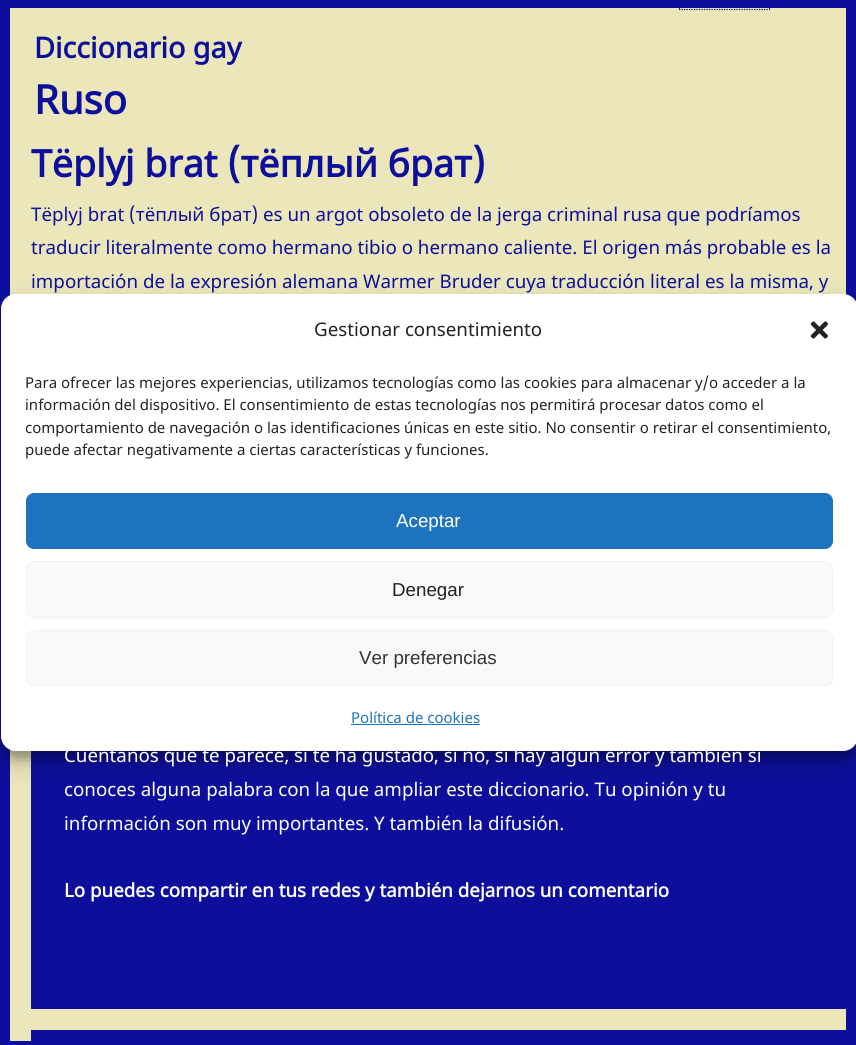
#include <cairo/cairo.h>
#include <math.h>
#include <stddef.h>

typedef struct { double x, y; const char *s; } line_t;
typedef struct { double x, y, w, h; unsigned color; } box_t;
static cairo_t *cr;

static void rgb(unsigned color)
{
	cairo_set_source_rgb(cr, (color >> 16) / 255.0, (color >> 8 & 255) / 255.0, (color & 255) / 255.0);
}

static void rrect(double x, double y, double w, double h, double r)
{
	cairo_new_sub_path(cr);
	cairo_arc(cr, x + w - r, y + h - r, r, 0, M_PI / 2);
	cairo_arc(cr, x + r, y + h - r, r, M_PI / 2, M_PI);
	cairo_arc(cr, x + r, y + r, r, M_PI, 1.5 * M_PI);
	cairo_arc(cr, x + w - r, y + r, r, 1.5 * M_PI, 2 * M_PI);
	cairo_close_path(cr);
}

static void soft_shadow(double x, double y, double w, double h, double r, double blur, double alpha)
{
	cairo_push_group_with_content(cr, CAIRO_CONTENT_ALPHA);
	cairo_set_operator(cr, CAIRO_OPERATOR_SOURCE);
	for (int i = 15; i >= -15 && fmin(w, h) + blur * i / 3 > 0; i -= 2) {
		double e = blur * i / 6;
		cairo_set_source_rgba(cr, 0, 0, 0, alpha * erfc((i - 1) / 8.5) / 2);
		rrect(x - e, y - e, w + 2 * e, h + 2 * e, fmax(0, fmin(r + e + blur * .6, fmin(w, h) / 2 + e)));
		cairo_fill(cr);
	}
	cairo_pattern_t *soft = cairo_pop_group(cr);
	cairo_mask(cr, soft);
	cairo_pattern_destroy(soft);
}

static void image(const char *path, double x, double y, double w, double h)
{
	cairo_surface_t *image = cairo_image_surface_create_from_png(path);
	cairo_save(cr);
	cairo_set_source_surface(cr, image, x, y);
	cairo_rectangle(cr, x, y, w, h);
	cairo_fill(cr);
	cairo_restore(cr);
	cairo_surface_destroy(image);
}

int main(void) {
	cairo_surface_t *surface = cairo_image_surface_create(CAIRO_FORMAT_RGB24, 856, 1045);
	cr = cairo_create(surface);
	cairo_font_options_t *options = cairo_font_options_create();
	cairo_font_options_set_hint_metrics(options, CAIRO_HINT_METRICS_OFF);
	cairo_font_options_set_hint_style(options, CAIRO_HINT_STYLE_NONE);
	cairo_set_font_options(cr, options);
	cairo_set_miter_limit(cr, 4);
	rgb(0xebe7bb);
	cairo_paint(cr);
	cairo_rectangle(cr, 5, -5, 846, 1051);
	rgb(0x0d0f9c);
	cairo_set_line_width(cr, 10);
	cairo_stroke(cr);
	cairo_new_path(cr);
	cairo_move_to(cr, 769.5, -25);
	cairo_line_to(cr, 769.5, 10);
	cairo_set_line_width(cr, 1.2);
	cairo_set_dash(cr, (double[]){1.25, 1.25}, 2, 0);
	cairo_stroke(cr);
	cairo_new_path(cr);
	cairo_move_to(cr, 679, 9.5);
	cairo_line_to(cr, 770, 9.5);
	cairo_stroke(cr);
	cairo_new_path(cr);
	cairo_move_to(cr, 679.5, -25);
	cairo_line_to(cr, 679.5, 10);
	cairo_stroke(cr);
	{
		static const box_t items[] = {
			{5, 0, 841, 8, 0x0d0f9c},
			{31, 750, 815, 259, 0x0d0f9c},
			{31, 1030, 815, 11, 0x0d0f9c},
		};
		for (size_t i = 0; i < sizeof items / sizeof *items; i++) {
			rgb(items[i].color);
			cairo_rectangle(cr, items[i].x, items[i].y, items[i].w, items[i].h);
			cairo_fill(cr);
		}
	}
	cairo_save(cr);
	cairo_set_fill_rule(cr, CAIRO_FILL_RULE_EVEN_ODD);
	cairo_new_path(cr);
	cairo_move_to(cr, 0, 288);
	cairo_line_to(cr, 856, 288);
	cairo_line_to(cr, 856, 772);
	cairo_line_to(cr, 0, 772);
	cairo_close_path(cr);
	cairo_move_to(cr, 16, 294);
	cairo_line_to(cr, 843, 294);
	cairo_curve_to(cr, 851.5, 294, 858, 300.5, 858, 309);
	cairo_line_to(cr, 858, 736);
	cairo_curve_to(cr, 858, 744.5, 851.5, 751, 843, 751);
	cairo_line_to(cr, 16, 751);
	cairo_curve_to(cr, 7.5, 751, 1, 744.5, 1, 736);
	cairo_line_to(cr, 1, 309);
	cairo_curve_to(cr, 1, 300.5, 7.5, 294, 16, 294);
	cairo_close_path(cr);
	cairo_clip(cr);
	rgb(0x000000);
	soft_shadow(1, 301, 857, 458, 15, 4, 0.23);
	cairo_restore(cr);
	cairo_save(cr);
	cairo_set_fill_rule(cr, CAIRO_FILL_RULE_EVEN_ODD);
	cairo_new_path(cr);
	cairo_move_to(cr, 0, 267);
	cairo_line_to(cr, 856, 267);
	cairo_line_to(cr, 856, 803);
	cairo_line_to(cr, 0, 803);
	cairo_close_path(cr);
	cairo_move_to(cr, 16, 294);
	cairo_line_to(cr, 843, 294);
	cairo_curve_to(cr, 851.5, 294, 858, 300.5, 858, 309);
	cairo_line_to(cr, 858, 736);
	cairo_curve_to(cr, 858, 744.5, 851.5, 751, 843, 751);
	cairo_line_to(cr, 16, 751);
	cairo_curve_to(cr, 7.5, 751, 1, 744.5, 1, 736);
	cairo_line_to(cr, 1, 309);
	cairo_curve_to(cr, 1, 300.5, 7.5, 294, 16, 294);
	cairo_close_path(cr);
	cairo_clip(cr);
	rgb(0x000000);
	soft_shadow(1, 306, 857, 458, 15, 12.5, 0.19);
	cairo_restore(cr);
	rgb(0xffffff);
	rrect(1, 294, 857, 457, 15);
	cairo_fill(cr);
	image("img/1.png", 810, 321, 18, 18);
	rgb(0x1e73be);
	rrect(26.5, 493.5, 806, 55, 7.5);
	cairo_fill_preserve(cr);
	cairo_set_line_width(cr, 1);
	cairo_set_dash(cr, NULL, 0, 0);
	cairo_stroke(cr);
	rgb(0xf9f9f9);
	rrect(26.5, 561.5, 806, 56, 7.5);
	cairo_fill_preserve(cr);
	rgb(0xf2f2f2);
	cairo_stroke(cr);
	rgb(0xf9f9f9);
	rrect(26.5, 630.5, 806, 55, 7.5);
	cairo_fill_preserve(cr);
	rgb(0xf2f2f2);
	cairo_stroke(cr);
	rgb(0x1e73be);
	cairo_rectangle(cr, 351, 724, 129, 1);
	cairo_fill(cr);
	cairo_select_font_face(cr, "Noto Sans", CAIRO_FONT_SLANT_NORMAL, CAIRO_FONT_WEIGHT_BOLD);
	cairo_set_font_size(cr, 28.75);
	rgb(0x0d0f9c);
	cairo_move_to(cr, 34, 58);
	cairo_show_text(cr, "Diccionario gay");
	cairo_set_font_size(cr, 40);
	cairo_move_to(cr, 34, 114);
	cairo_show_text(cr, "Ruso");
	cairo_set_font_size(cr, 37.5);
	cairo_move_to(cr, 31, 177);
	cairo_show_text(cr, "Tëplyj brat (тёплый брат)");
	cairo_select_font_face(cr, "Noto Sans", CAIRO_FONT_SLANT_NORMAL, CAIRO_FONT_WEIGHT_NORMAL);
	cairo_set_font_size(cr, 18.75);
	{
		static const line_t items[] = {
			{31, 221, "Tëplyj brat (тёплый брат) es un argot obsoleto de la jerga criminal rusa que podríamos"},
			{31, 254, "traducir literalmente como hermano tibio o hermano caliente. El origen más probable es la"},
			{31, 288, "importación de la expresión alemana Warmer Bruder cuya traducción literal es la misma, y"},
		};
		for (size_t i = 0; i < sizeof items / sizeof *items; i++) {
			cairo_move_to(cr, items[i].x, items[i].y);
			cairo_show_text(cr, items[i].s);
		}
	}
	rgb(0xffffff);
	{
		static const line_t items[] = {
			{64, 762, "Cuéntanos qué te parece, si te ha gustado, si no, si hay algún error y también si"},
			{64, 796, "conoces alguna palabra con la que ampliar este diccionario. Tu opinión y tu"},
			{64, 830, "información son muy importantes. Y también la difusión."},
		};
		for (size_t i = 0; i < sizeof items / sizeof *items; i++) {
			cairo_move_to(cr, items[i].x, items[i].y);
			cairo_show_text(cr, items[i].s);
		}
	}
	cairo_select_font_face(cr, "Noto Sans", CAIRO_FONT_SLANT_NORMAL, CAIRO_FONT_WEIGHT_BOLD);
	cairo_move_to(cr, 64, 897);
	cairo_show_text(cr, "Lo puedes compartir en tus redes y también dejarnos un comentario");
	cairo_select_font_face(cr, "Noto Sans", CAIRO_FONT_SLANT_NORMAL, CAIRO_FONT_WEIGHT_NORMAL);
	rgb(0x222222);
	cairo_move_to(cr, 314, 336);
	cairo_show_text(cr, "Gestionar consentimiento");
	cairo_set_font_size(cr, 15);
	{
		static const line_t items[] = {
			{25, 388, "Para ofrecer las mejores experiencias, utilizamos tecnologías como las cookies para almacenar y/o acceder a la"},
			{25, 410, "información del dispositivo. El consentimiento de estas tecnologías nos permitirá procesar datos como el"},
			{25, 433, "comportamiento de navegación o las identificaciones únicas en este sitio. No consentir o retirar el consentimiento,"},
			{25, 455, "puede afectar negativamente a ciertas características y funciones."},
		};
		for (size_t i = 0; i < sizeof items / sizeof *items; i++) {
			cairo_move_to(cr, items[i].x, items[i].y);
			cairo_show_text(cr, items[i].s);
		}
	}
	cairo_select_font_face(cr, "Liberation Sans", CAIRO_FONT_SLANT_NORMAL, CAIRO_FONT_WEIGHT_NORMAL);
	cairo_set_font_size(cr, 18.75);
	rgb(0xffffff);
	cairo_move_to(cr, 396, 527);
	cairo_show_text(cr, "Aceptar");
	rgb(0x222222);
	cairo_move_to(cr, 392, 596);
	cairo_show_text(cr, "Denegar");
	rgb(0x333333);
	cairo_move_to(cr, 359, 664);
	cairo_show_text(cr, "Ver preferencias");
	cairo_select_font_face(cr, "Noto Sans", CAIRO_FONT_SLANT_NORMAL, CAIRO_FONT_WEIGHT_NORMAL);
	cairo_set_font_size(cr, 15);
	rgb(0x1e73be);
	cairo_move_to(cr, 351, 723);
	cairo_show_text(cr, "Política de cookies");
	cairo_surface_write_to_png(surface, "page.png");
	cairo_font_options_destroy(options);
	cairo_destroy(cr);
	cairo_surface_destroy(surface);
	return 0;
}
